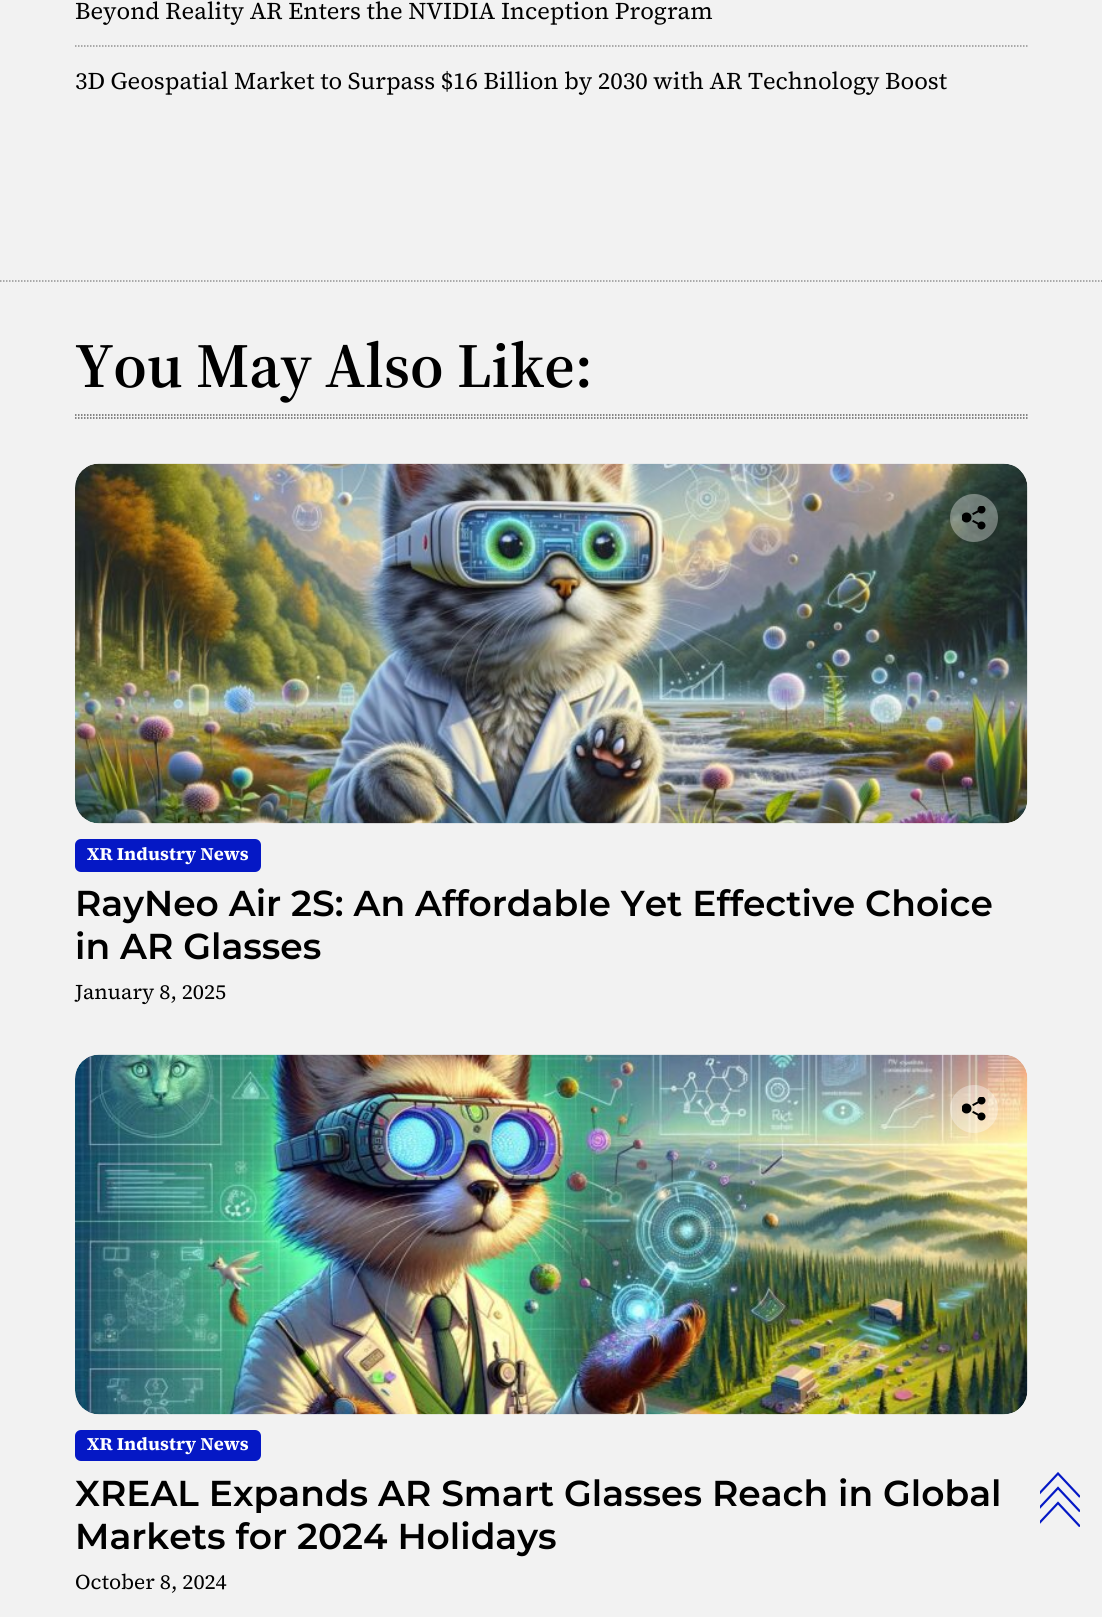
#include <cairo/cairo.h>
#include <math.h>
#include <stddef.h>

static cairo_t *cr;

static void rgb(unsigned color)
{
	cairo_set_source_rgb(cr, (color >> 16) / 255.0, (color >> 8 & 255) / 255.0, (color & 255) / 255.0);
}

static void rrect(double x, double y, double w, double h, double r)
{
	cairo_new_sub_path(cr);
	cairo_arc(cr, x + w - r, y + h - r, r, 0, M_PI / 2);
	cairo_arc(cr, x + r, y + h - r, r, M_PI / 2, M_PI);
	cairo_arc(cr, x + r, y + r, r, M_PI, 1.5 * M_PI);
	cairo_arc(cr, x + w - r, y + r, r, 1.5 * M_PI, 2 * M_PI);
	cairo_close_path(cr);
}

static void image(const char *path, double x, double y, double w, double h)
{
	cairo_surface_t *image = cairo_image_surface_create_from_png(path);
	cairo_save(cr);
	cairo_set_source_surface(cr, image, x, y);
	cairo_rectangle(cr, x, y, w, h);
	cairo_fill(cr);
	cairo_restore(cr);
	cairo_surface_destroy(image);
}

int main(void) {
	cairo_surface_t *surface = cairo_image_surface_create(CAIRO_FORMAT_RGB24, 1102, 1617);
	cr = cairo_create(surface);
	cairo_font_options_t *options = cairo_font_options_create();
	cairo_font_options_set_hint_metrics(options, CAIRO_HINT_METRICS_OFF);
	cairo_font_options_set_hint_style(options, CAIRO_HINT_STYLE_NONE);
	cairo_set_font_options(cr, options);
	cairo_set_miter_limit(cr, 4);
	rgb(0xf2f2f2);
	cairo_paint(cr);
	cairo_new_path(cr);
	cairo_move_to(cr, 75, 46);
	cairo_line_to(cr, 1027.5, 46);
	rgb(0x919191);
	cairo_set_line_width(cr, 1.5);
	cairo_set_dash(cr, (double[]){1.5, 1.5}, 2, 0);
	cairo_stroke(cr);
	cairo_new_path(cr);
	cairo_move_to(cr, 0, 281);
	cairo_line_to(cr, 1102.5, 281);
	cairo_stroke(cr);
	cairo_new_path(cr);
	cairo_move_to(cr, 75, 418);
	cairo_line_to(cr, 1027.5, 418);
	rgb(0x616161);
	cairo_stroke(cr);
	cairo_new_path(cr);
	cairo_move_to(cr, 75, 415);
	cairo_line_to(cr, 1027.5, 415);
	cairo_stroke(cr);
	image("img/1.png", 75, 463, 953, 361);
	cairo_set_source_rgba(cr, 1, 1, 1, 0.35);
	cairo_arc(cr, 974, 518, 24, 0, 2 * M_PI);
	cairo_fill(cr);
	image("img/2.png", 962, 506, 24, 24);
	rgb(0x0518c5);
	rrect(75, 839, 186, 33, 6);
	cairo_fill(cr);
	image("img/3.png", 75, 1054, 953, 361);
	cairo_set_source_rgba(cr, 1, 1, 1, 0.35);
	cairo_arc(cr, 974, 1109, 24, 0, 2 * M_PI);
	cairo_fill(cr);
	image("img/4.png", 962, 1097, 24, 24);
	rgb(0x0518c5);
	rrect(75, 1430, 186, 31, 6);
	cairo_fill(cr);
	cairo_save(cr);
	cairo_rectangle(cr, 1040, 1452, 40, 75);
	cairo_clip(cr);
	cairo_new_path(cr);
	cairo_move_to(cr, 1080, 1526.5);
	cairo_line_to(cr, 1058, 1503);
	cairo_line_to(cr, 1036, 1526.5);
	cairo_move_to(cr, 1080, 1511.5);
	cairo_line_to(cr, 1058, 1488);
	cairo_line_to(cr, 1036, 1511.5);
	cairo_move_to(cr, 1080, 1497);
	cairo_line_to(cr, 1058, 1473.5);
	cairo_line_to(cr, 1036, 1497);
	cairo_set_line_width(cr, 2.2);
	cairo_set_dash(cr, NULL, 0, 0);
	cairo_stroke(cr);
	cairo_restore(cr);
	cairo_select_font_face(cr, "Source Serif 4", CAIRO_FONT_SLANT_NORMAL, CAIRO_FONT_WEIGHT_NORMAL);
	cairo_set_font_size(cr, 24);
	rgb(0x000000);
	cairo_move_to(cr, 75, 19);
	cairo_show_text(cr, "Beyond Reality AR Enters the NVIDIA Inception Program");
	cairo_move_to(cr, 75, 89);
	cairo_show_text(cr, "3D Geospatial Market to Surpass $16 Billion by 2030 with AR Technology Boost");
	cairo_select_font_face(cr, "Source Serif 4 SemiBold", CAIRO_FONT_SLANT_NORMAL, CAIRO_FONT_WEIGHT_NORMAL);
	cairo_set_font_size(cr, 63);
	cairo_move_to(cr, 75, 387);
	cairo_show_text(cr, "You May Also Like:");
	cairo_select_font_face(cr, "Source Serif 4", CAIRO_FONT_SLANT_NORMAL, CAIRO_FONT_WEIGHT_BOLD);
	cairo_set_font_size(cr, 18);
	rgb(0xffffff);
	cairo_move_to(cr, 87, 860);
	cairo_show_text(cr, "XR Industry News");
	cairo_select_font_face(cr, "Montserrat SemiBold", CAIRO_FONT_SLANT_NORMAL, CAIRO_FONT_WEIGHT_NORMAL);
	cairo_set_font_size(cr, 36);
	rgb(0x000000);
	cairo_move_to(cr, 75, 916);
	cairo_show_text(cr, "RayNeo Air 2S: An Affordable Yet Effective Choice");
	cairo_move_to(cr, 75, 959);
	cairo_show_text(cr, "in AR Glasses");
	cairo_select_font_face(cr, "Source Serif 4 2", CAIRO_FONT_SLANT_NORMAL, CAIRO_FONT_WEIGHT_NORMAL);
	cairo_set_font_size(cr, 21);
	cairo_move_to(cr, 75, 999);
	cairo_show_text(cr, "January 8, 2025");
	cairo_select_font_face(cr, "Source Serif 4", CAIRO_FONT_SLANT_NORMAL, CAIRO_FONT_WEIGHT_BOLD);
	cairo_set_font_size(cr, 18);
	rgb(0xffffff);
	cairo_move_to(cr, 87, 1450);
	cairo_show_text(cr, "XR Industry News");
	cairo_select_font_face(cr, "Montserrat SemiBold", CAIRO_FONT_SLANT_NORMAL, CAIRO_FONT_WEIGHT_NORMAL);
	cairo_set_font_size(cr, 36);
	rgb(0x000000);
	cairo_move_to(cr, 75, 1506);
	cairo_show_text(cr, "XREAL Expands AR Smart Glasses Reach in Global");
	cairo_move_to(cr, 75, 1549);
	cairo_show_text(cr, "Markets for 2024 Holidays");
	cairo_select_font_face(cr, "Source Serif 4 2", CAIRO_FONT_SLANT_NORMAL, CAIRO_FONT_WEIGHT_NORMAL);
	cairo_set_font_size(cr, 21);
	cairo_move_to(cr, 75, 1589);
	cairo_show_text(cr, "October 8, 2024");
	cairo_surface_write_to_png(surface, "page.png");
	cairo_font_options_destroy(options);
	cairo_destroy(cr);
	cairo_surface_destroy(surface);
	return 0;
}
